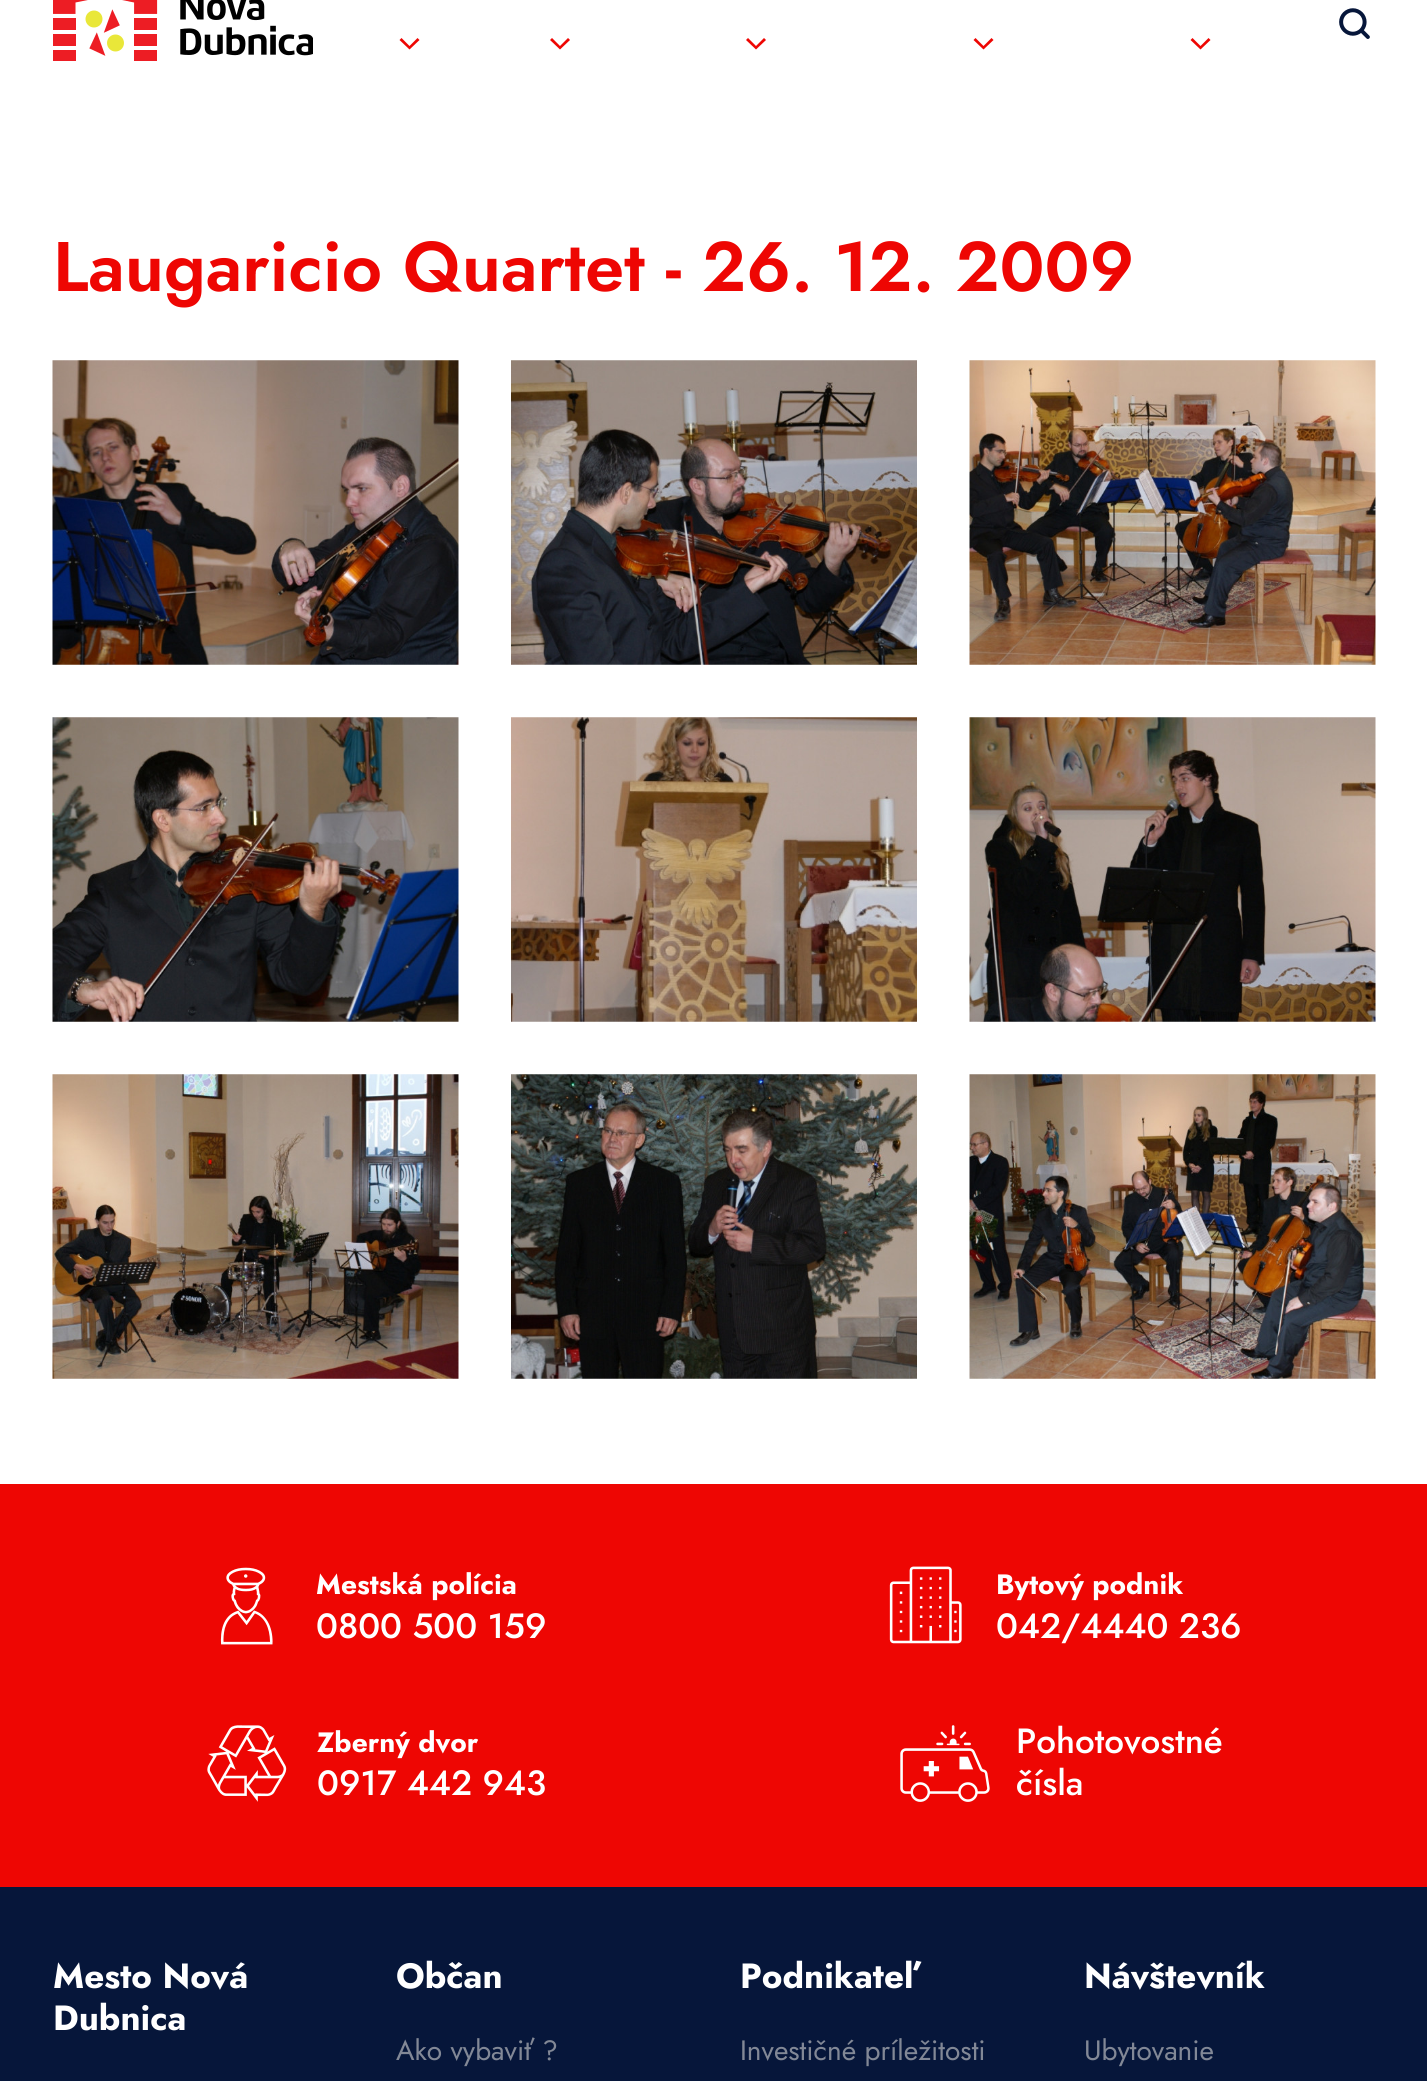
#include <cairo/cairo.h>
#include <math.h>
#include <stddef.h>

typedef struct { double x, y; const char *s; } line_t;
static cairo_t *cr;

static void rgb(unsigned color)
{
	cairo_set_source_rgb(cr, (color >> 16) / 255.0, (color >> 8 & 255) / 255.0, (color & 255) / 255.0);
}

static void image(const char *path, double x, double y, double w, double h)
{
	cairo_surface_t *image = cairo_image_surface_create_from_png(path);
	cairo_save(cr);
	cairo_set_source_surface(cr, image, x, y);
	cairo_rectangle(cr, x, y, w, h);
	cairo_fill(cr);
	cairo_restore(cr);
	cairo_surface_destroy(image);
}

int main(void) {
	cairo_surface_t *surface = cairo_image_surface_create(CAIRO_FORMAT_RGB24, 1427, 2081);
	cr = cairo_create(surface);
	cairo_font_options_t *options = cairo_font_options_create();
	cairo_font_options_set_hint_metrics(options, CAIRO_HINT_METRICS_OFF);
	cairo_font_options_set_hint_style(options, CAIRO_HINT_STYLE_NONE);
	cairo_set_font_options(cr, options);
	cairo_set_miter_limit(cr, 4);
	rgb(0xffffff);
	cairo_paint(cr);
	image("img/1.png", 53, 0, 260, 61);
	image("img/2.png", 1339, 8, 31, 31);
	rgb(0xee0603);
	cairo_new_path(cr);
	cairo_move_to(cr, 399.5, 40);
	cairo_line_to(cr, 409.5, 49.5);
	cairo_line_to(cr, 419.5, 40);
	cairo_line_to(cr, 417.5, 38);
	cairo_line_to(cr, 409.5, 46);
	cairo_line_to(cr, 401.5, 38);
	cairo_close_path(cr);
	cairo_fill(cr);
	cairo_new_path(cr);
	cairo_move_to(cr, 550, 40);
	cairo_line_to(cr, 560, 49.5);
	cairo_line_to(cr, 570, 40);
	cairo_line_to(cr, 568, 38);
	cairo_line_to(cr, 560, 46);
	cairo_line_to(cr, 552, 38);
	cairo_close_path(cr);
	cairo_fill(cr);
	cairo_new_path(cr);
	cairo_move_to(cr, 746, 40);
	cairo_line_to(cr, 756, 49.5);
	cairo_line_to(cr, 766, 40);
	cairo_line_to(cr, 764, 38);
	cairo_line_to(cr, 756, 46);
	cairo_line_to(cr, 748, 38);
	cairo_close_path(cr);
	cairo_fill(cr);
	cairo_new_path(cr);
	cairo_move_to(cr, 973.5, 40);
	cairo_line_to(cr, 983.5, 49.5);
	cairo_line_to(cr, 993.5, 40);
	cairo_line_to(cr, 991.5, 38);
	cairo_line_to(cr, 983.5, 46);
	cairo_line_to(cr, 975.5, 38);
	cairo_close_path(cr);
	cairo_fill(cr);
	cairo_new_path(cr);
	cairo_move_to(cr, 1190.5, 40);
	cairo_line_to(cr, 1200.5, 49.5);
	cairo_line_to(cr, 1210.5, 40);
	cairo_line_to(cr, 1208.5, 38);
	cairo_line_to(cr, 1200.5, 46);
	cairo_line_to(cr, 1192.5, 38);
	cairo_close_path(cr);
	cairo_fill(cr);
	image("img/3.png", 52, 360, 407, 305);
	image("img/4.png", 511, 360, 406, 305);
	image("img/5.png", 969, 360, 407, 305);
	image("img/6.png", 52, 717, 407, 305);
	image("img/7.png", 511, 717, 406, 305);
	image("img/8.png", 969, 717, 407, 305);
	image("img/9.png", 52, 1074, 407, 305);
	image("img/10.png", 511, 1074, 406, 305);
	image("img/11.png", 969, 1074, 407, 305);
	cairo_rectangle(cr, 0, 1484, 1427, 403);
	cairo_fill(cr);
	image("img/12.png", 220, 1567, 53, 78);
	image("img/13.png", 889, 1566, 73, 78);
	image("img/14.png", 207, 1725, 80, 77);
	image("img/15.png", 900, 1725, 90, 77);
	rgb(0x06163a);
	cairo_rectangle(cr, 0, 1887, 1427, 194);
	cairo_fill(cr);
	cairo_select_font_face(cr, "Jost SemiBold", CAIRO_FONT_SLANT_NORMAL, CAIRO_FONT_WEIGHT_NORMAL);
	cairo_set_font_size(cr, 70);
	rgb(0xee0603);
	cairo_move_to(cr, 53, 291);
	cairo_show_text(cr, "Laugaricio Quartet - 26. 12. 2009");
	cairo_select_font_face(cr, "Jost", CAIRO_FONT_SLANT_NORMAL, CAIRO_FONT_WEIGHT_BOLD);
	cairo_set_font_size(cr, 28);
	rgb(0xffffff);
	cairo_move_to(cr, 316, 1594);
	cairo_show_text(cr, "Mestská polícia");
	cairo_select_font_face(cr, "Jost Medium", CAIRO_FONT_SLANT_NORMAL, CAIRO_FONT_WEIGHT_NORMAL);
	cairo_set_font_size(cr, 35);
	cairo_move_to(cr, 316, 1638);
	cairo_show_text(cr, "0800 500 159");
	cairo_select_font_face(cr, "Jost", CAIRO_FONT_SLANT_NORMAL, CAIRO_FONT_WEIGHT_BOLD);
	cairo_set_font_size(cr, 28);
	cairo_move_to(cr, 996, 1594);
	cairo_show_text(cr, "Bytový podnik");
	cairo_select_font_face(cr, "Jost Medium", CAIRO_FONT_SLANT_NORMAL, CAIRO_FONT_WEIGHT_NORMAL);
	cairo_set_font_size(cr, 35);
	cairo_move_to(cr, 996, 1638);
	cairo_show_text(cr, "042/4440 236");
	cairo_select_font_face(cr, "Jost", CAIRO_FONT_SLANT_NORMAL, CAIRO_FONT_WEIGHT_BOLD);
	cairo_set_font_size(cr, 28);
	cairo_move_to(cr, 317, 1752);
	cairo_show_text(cr, "Zberný dvor");
	cairo_select_font_face(cr, "Jost Medium", CAIRO_FONT_SLANT_NORMAL, CAIRO_FONT_WEIGHT_NORMAL);
	cairo_set_font_size(cr, 35);
	{
		static const line_t items[] = {
			{317, 1795, "0917 442 943"},
			{1016, 1753, "Pohotovostné"},
			{1016, 1795, "čísla"},
		};
		for (size_t i = 0; i < sizeof items / sizeof *items; i++) {
			cairo_move_to(cr, items[i].x, items[i].y);
			cairo_show_text(cr, items[i].s);
		}
	}
	cairo_select_font_face(cr, "Jost", CAIRO_FONT_SLANT_NORMAL, CAIRO_FONT_WEIGHT_BOLD);
	{
		static const line_t items[] = {
			{53, 1988, "Mesto Nová"},
			{53, 2030, "Dubnica"},
			{396, 1988, "Občan"},
		};
		for (size_t i = 0; i < sizeof items / sizeof *items; i++) {
			cairo_move_to(cr, items[i].x, items[i].y);
			cairo_show_text(cr, items[i].s);
		}
	}
	cairo_select_font_face(cr, "Jost", CAIRO_FONT_SLANT_NORMAL, CAIRO_FONT_WEIGHT_NORMAL);
	cairo_set_font_size(cr, 28);
	rgb(0x828896);
	cairo_move_to(cr, 396, 2060);
	cairo_show_text(cr, "Ako vybaviť ?");
	cairo_select_font_face(cr, "Jost", CAIRO_FONT_SLANT_NORMAL, CAIRO_FONT_WEIGHT_BOLD);
	cairo_set_font_size(cr, 35);
	rgb(0xffffff);
	cairo_move_to(cr, 740, 1988);
	cairo_show_text(cr, "Podnikateľ");
	cairo_select_font_face(cr, "Jost", CAIRO_FONT_SLANT_NORMAL, CAIRO_FONT_WEIGHT_NORMAL);
	cairo_set_font_size(cr, 28);
	rgb(0x828896);
	cairo_move_to(cr, 740, 2060);
	cairo_show_text(cr, "Investičné príležitosti");
	cairo_select_font_face(cr, "Jost", CAIRO_FONT_SLANT_NORMAL, CAIRO_FONT_WEIGHT_BOLD);
	cairo_set_font_size(cr, 35);
	rgb(0xffffff);
	cairo_move_to(cr, 1084, 1988);
	cairo_show_text(cr, "Návštevník");
	cairo_select_font_face(cr, "Jost", CAIRO_FONT_SLANT_NORMAL, CAIRO_FONT_WEIGHT_NORMAL);
	cairo_set_font_size(cr, 28);
	rgb(0x828896);
	cairo_move_to(cr, 1084, 2060);
	cairo_show_text(cr, "Ubytovanie");
	cairo_surface_write_to_png(surface, "page.png");
	cairo_font_options_destroy(options);
	cairo_destroy(cr);
	cairo_surface_destroy(surface);
	return 0;
}
